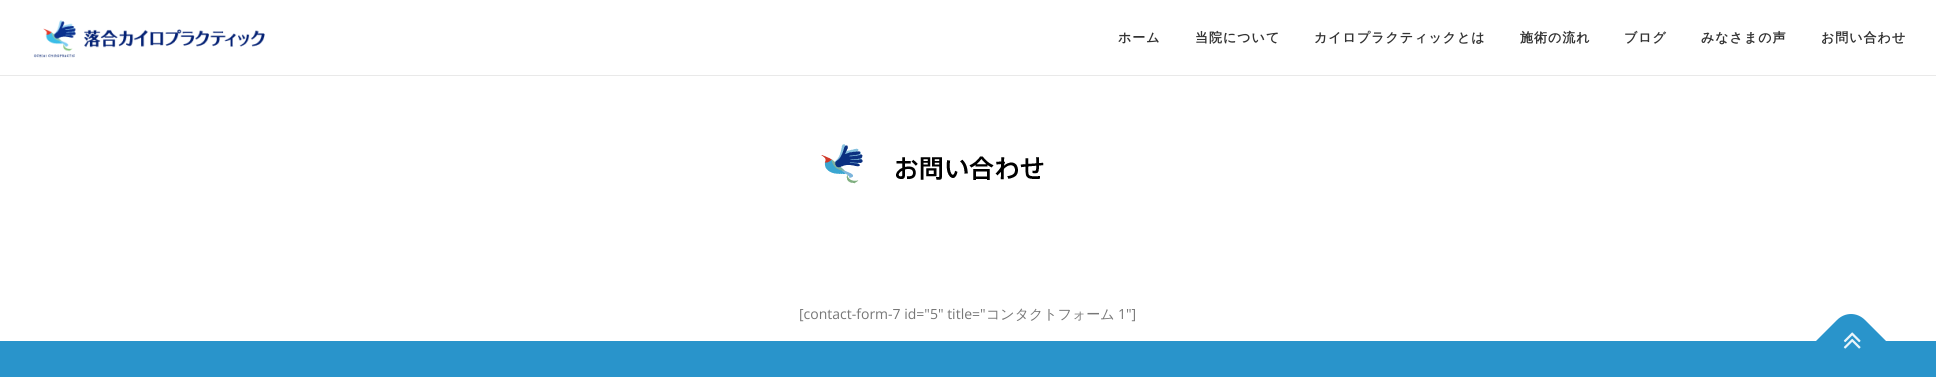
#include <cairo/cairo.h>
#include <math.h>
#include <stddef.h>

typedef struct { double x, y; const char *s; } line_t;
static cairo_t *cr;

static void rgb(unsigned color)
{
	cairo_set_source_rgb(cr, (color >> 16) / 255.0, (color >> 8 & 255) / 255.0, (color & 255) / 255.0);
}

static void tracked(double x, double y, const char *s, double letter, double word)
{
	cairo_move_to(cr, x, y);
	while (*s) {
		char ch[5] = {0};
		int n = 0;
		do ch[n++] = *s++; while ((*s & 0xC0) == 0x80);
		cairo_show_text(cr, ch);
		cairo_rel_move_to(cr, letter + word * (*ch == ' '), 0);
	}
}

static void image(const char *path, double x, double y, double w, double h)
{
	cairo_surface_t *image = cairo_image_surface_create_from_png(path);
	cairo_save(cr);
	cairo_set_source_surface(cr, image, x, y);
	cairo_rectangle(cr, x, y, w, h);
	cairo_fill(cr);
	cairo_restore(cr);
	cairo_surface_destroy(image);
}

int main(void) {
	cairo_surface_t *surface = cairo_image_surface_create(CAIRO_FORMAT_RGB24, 1936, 377);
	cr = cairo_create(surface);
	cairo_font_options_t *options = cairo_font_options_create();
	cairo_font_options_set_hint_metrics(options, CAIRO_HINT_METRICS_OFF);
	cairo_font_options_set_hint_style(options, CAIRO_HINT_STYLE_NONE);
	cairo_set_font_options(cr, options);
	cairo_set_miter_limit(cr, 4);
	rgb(0xffffff);
	cairo_paint(cr);
	image("img/1.png", 33, 20, 232, 38);
	rgb(0xe9e9e9);
	cairo_rectangle(cr, 0, 75, 1936, 1);
	cairo_fill(cr);
	image("img/2.png", 821, 144, 223, 40);
	rgb(0x2994cb);
	cairo_rectangle(cr, 0, 341, 1936, 36);
	cairo_fill(cr);
	cairo_new_path(cr);
	cairo_move_to(cr, 1816, 341);
	cairo_line_to(cr, 1837, 320);
	cairo_curve_to(cr, 1845, 312, 1857, 312, 1865, 320);
	cairo_line_to(cr, 1886, 341);
	cairo_line_to(cr, 1851, 376);
	cairo_close_path(cr);
	cairo_fill(cr);
	image("img/3.png", 1843, 332, 18, 17);
	cairo_select_font_face(cr, "WenQuanYi Zen Hei", CAIRO_FONT_SLANT_NORMAL, CAIRO_FONT_WEIGHT_BOLD);
	cairo_set_font_size(cr, 13);
	rgb(0x333333);
	{
		static const line_t items[] = {
			{1118, 42, "ホーム"},
			{1195, 42, "当院について"},
			{1314, 42, "カイロプラクティックとは"},
			{1520, 42, "施術の流れ"},
			{1624, 42, "ブログ"},
			{1701, 42, "みなさまの声"},
			{1821, 42, "お問い合わせ"},
		};
		for (size_t i = 0; i < sizeof items / sizeof *items; i++) {
			tracked(items[i].x, items[i].y, items[i].s, 1, 0);
		}
	}
	cairo_select_font_face(cr, "Open Sans", CAIRO_FONT_SLANT_NORMAL, CAIRO_FONT_WEIGHT_NORMAL);
	cairo_set_font_size(cr, 14);
	rgb(0x777777);
	cairo_move_to(cr, 799, 319);
	cairo_show_text(cr, "[contact-form-7 id=\"5\" title=\"");
	cairo_select_font_face(cr, "WenQuanYi Zen Hei Medium", CAIRO_FONT_SLANT_NORMAL, CAIRO_FONT_WEIGHT_NORMAL);
	cairo_move_to(cr, 986, 319);
	cairo_show_text(cr, "コンタクトフォーム");
	cairo_select_font_face(cr, "Open Sans", CAIRO_FONT_SLANT_NORMAL, CAIRO_FONT_WEIGHT_NORMAL);
	cairo_move_to(cr, 1118, 319);
	cairo_show_text(cr, "1\"]");
	cairo_surface_write_to_png(surface, "page.png");
	cairo_font_options_destroy(options);
	cairo_destroy(cr);
	cairo_surface_destroy(surface);
	return 0;
}
